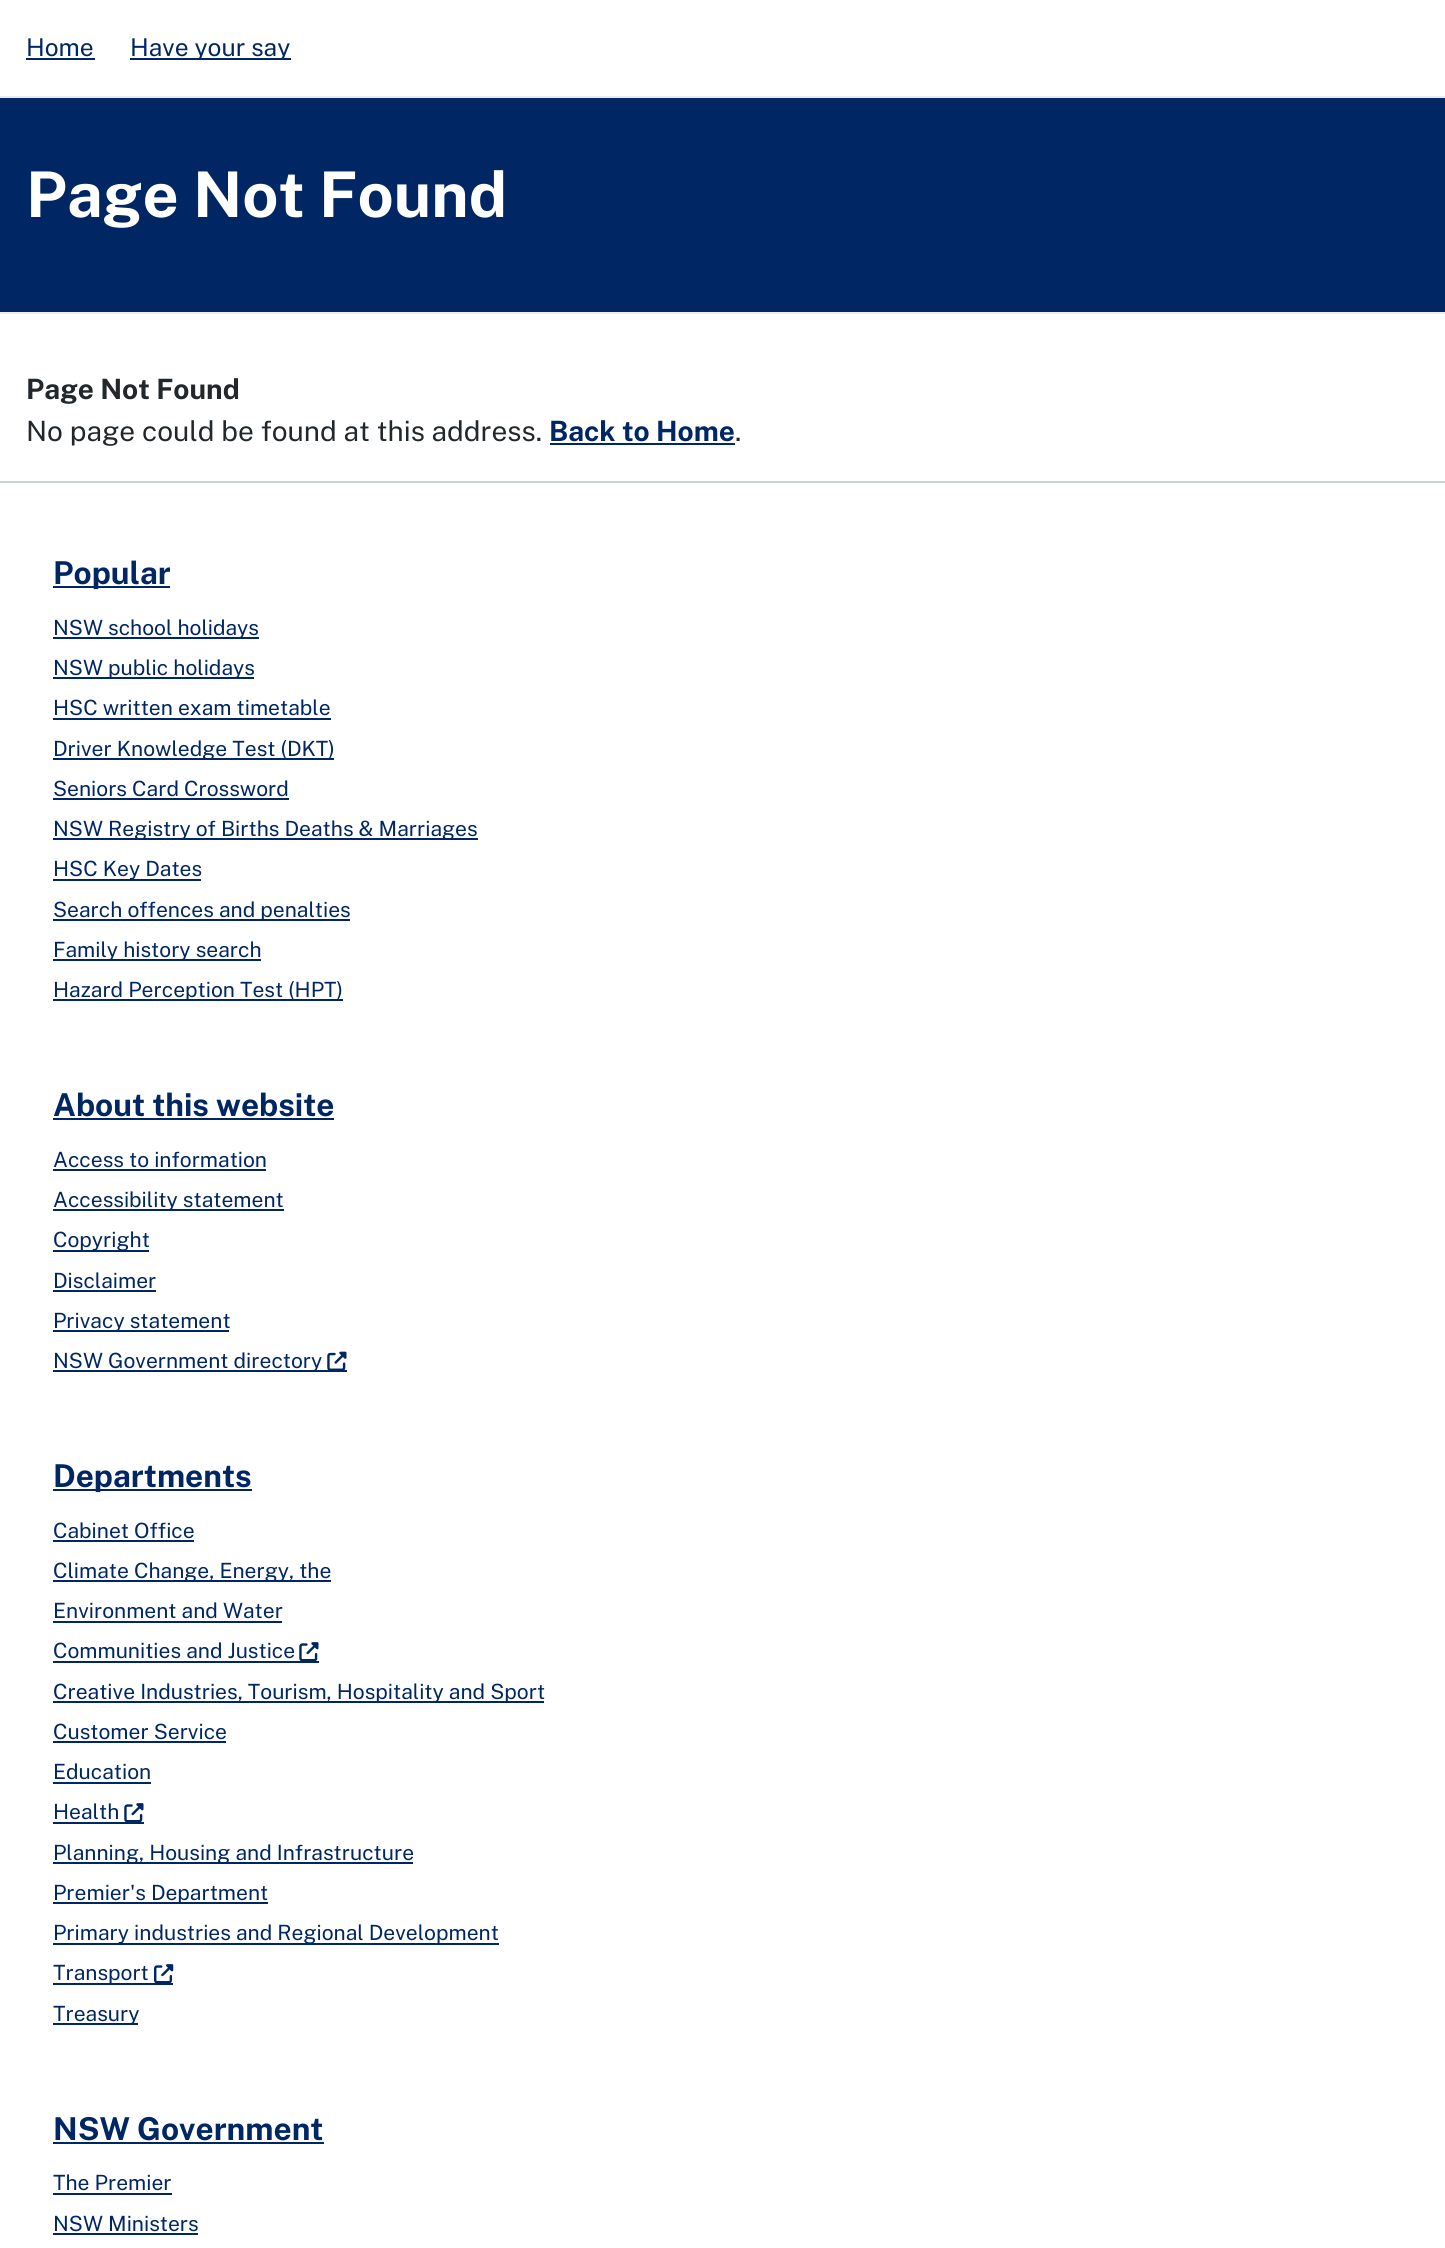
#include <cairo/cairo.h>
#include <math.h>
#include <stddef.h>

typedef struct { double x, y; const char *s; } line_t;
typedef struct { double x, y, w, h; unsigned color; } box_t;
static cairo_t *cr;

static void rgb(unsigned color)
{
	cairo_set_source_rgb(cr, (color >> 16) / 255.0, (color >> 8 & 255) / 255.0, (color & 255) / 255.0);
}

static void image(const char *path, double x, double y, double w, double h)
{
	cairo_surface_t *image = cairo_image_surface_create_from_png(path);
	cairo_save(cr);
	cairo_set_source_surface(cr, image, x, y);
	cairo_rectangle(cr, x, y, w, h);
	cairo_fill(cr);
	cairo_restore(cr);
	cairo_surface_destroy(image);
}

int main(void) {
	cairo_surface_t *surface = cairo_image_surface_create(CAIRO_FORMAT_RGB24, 1445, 2248);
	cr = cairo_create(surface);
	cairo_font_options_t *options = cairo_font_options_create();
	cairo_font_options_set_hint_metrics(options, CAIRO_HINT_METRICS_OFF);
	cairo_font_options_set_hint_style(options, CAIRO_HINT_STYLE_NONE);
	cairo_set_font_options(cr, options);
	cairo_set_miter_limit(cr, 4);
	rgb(0xffffff);
	cairo_paint(cr);
	{
		static const box_t items[] = {
			{0, 312, 1445, 2, 0xebebeb},
			{0, 96, 1445, 2, 0xebebeb},
			{26, 58, 69, 2, 0x002664},
			{130, 58, 161, 2, 0x002664},
			{0, 98, 1445, 214, 0x002664},
			{550, 443, 185, 2, 0x002664},
			{0, 481, 1445, 2, 0xcdd3d6},
			{53, 586, 117, 2, 0x002664},
			{53, 637, 206, 2, 0x002664},
			{53, 677, 201, 2, 0x002664},
			{53, 718, 278, 2, 0x002664},
			{53, 758, 281, 2, 0x002664},
			{53, 798, 236, 2, 0x002664},
			{53, 838, 425, 2, 0x002664},
			{53, 879, 148, 2, 0x002664},
			{53, 919, 297, 2, 0x002664},
			{53, 959, 208, 2, 0x002664},
			{53, 999, 290, 2, 0x002664},
			{53, 1118, 281, 2, 0x002664},
			{53, 1169, 213, 2, 0x002664},
			{53, 1209, 231, 2, 0x002664},
			{53, 1250, 96, 2, 0x002664},
			{53, 1290, 103, 2, 0x002664},
			{53, 1330, 176, 2, 0x002664},
			{53, 1370, 294, 2, 0x002664},
		};
		for (size_t i = 0; i < sizeof items / sizeof *items; i++) {
			rgb(items[i].color);
			cairo_rectangle(cr, items[i].x, items[i].y, items[i].w, items[i].h);
			cairo_fill(cr);
		}
	}
	image("img/1.png", 327, 1351, 20, 19);
	{
		static const box_t items[] = {
			{53, 1489, 199, 2, 0x002664},
			{53, 1540, 141, 2, 0x002664},
			{53, 1580, 278, 2, 0x002664},
			{53, 1621, 229, 2, 0x002664},
			{53, 1661, 266, 2, 0x002664},
		};
		for (size_t i = 0; i < sizeof items / sizeof *items; i++) {
			rgb(items[i].color);
			cairo_rectangle(cr, items[i].x, items[i].y, items[i].w, items[i].h);
			cairo_fill(cr);
		}
	}
	image("img/2.png", 299, 1642, 20, 19);
	{
		static const box_t items[] = {
			{53, 1701, 491, 2, 0x002664},
			{53, 1741, 173, 2, 0x002664},
			{53, 1782, 98, 2, 0x002664},
			{53, 1822, 91, 2, 0x002664},
		};
		for (size_t i = 0; i < sizeof items / sizeof *items; i++) {
			rgb(items[i].color);
			cairo_rectangle(cr, items[i].x, items[i].y, items[i].w, items[i].h);
			cairo_fill(cr);
		}
	}
	image("img/2.png", 124, 1803, 20, 19);
	{
		static const box_t items[] = {
			{53, 1862, 360, 2, 0x002664},
			{53, 1902, 215, 2, 0x002664},
			{53, 1943, 446, 2, 0x002664},
			{53, 1983, 120, 2, 0x002664},
		};
		for (size_t i = 0; i < sizeof items / sizeof *items; i++) {
			rgb(items[i].color);
			cairo_rectangle(cr, items[i].x, items[i].y, items[i].w, items[i].h);
			cairo_fill(cr);
		}
	}
	image("img/3.png", 154, 1964, 20, 19);
	{
		static const box_t items[] = {
			{53, 2023, 85, 2, 0x002664},
			{53, 2142, 271, 2, 0x002664},
			{53, 2193, 119, 2, 0x002664},
			{53, 2233, 145, 2, 0x002664},
		};
		for (size_t i = 0; i < sizeof items / sizeof *items; i++) {
			rgb(items[i].color);
			cairo_rectangle(cr, items[i].x, items[i].y, items[i].w, items[i].h);
			cairo_fill(cr);
		}
	}
	cairo_select_font_face(cr, "Public Sans", CAIRO_FONT_SLANT_NORMAL, CAIRO_FONT_WEIGHT_NORMAL);
	cairo_set_font_size(cr, 24.5);
	cairo_move_to(cr, 26, 56);
	cairo_show_text(cr, "Home");
	cairo_move_to(cr, 130, 56);
	cairo_show_text(cr, "Have your say");
	cairo_select_font_face(cr, "Public Sans", CAIRO_FONT_SLANT_NORMAL, CAIRO_FONT_WEIGHT_BOLD);
	cairo_set_font_size(cr, 63);
	rgb(0xffffff);
	cairo_move_to(cr, 26, 217);
	cairo_show_text(cr, "Page Not Found");
	cairo_set_font_size(cr, 28);
	rgb(0x22272b);
	cairo_move_to(cr, 26, 399);
	cairo_show_text(cr, "Page Not Found");
	cairo_select_font_face(cr, "Public Sans", CAIRO_FONT_SLANT_NORMAL, CAIRO_FONT_WEIGHT_NORMAL);
	cairo_move_to(cr, 26, 441);
	cairo_show_text(cr, "No page could be found at this address.");
	cairo_select_font_face(cr, "Public Sans", CAIRO_FONT_SLANT_NORMAL, CAIRO_FONT_WEIGHT_BOLD);
	rgb(0x002664);
	cairo_move_to(cr, 549, 441);
	cairo_show_text(cr, "Back to Home");
	cairo_select_font_face(cr, "Public Sans", CAIRO_FONT_SLANT_NORMAL, CAIRO_FONT_WEIGHT_NORMAL);
	rgb(0x22272b);
	cairo_move_to(cr, 735, 441);
	cairo_show_text(cr, ".");
	cairo_select_font_face(cr, "Public Sans", CAIRO_FONT_SLANT_NORMAL, CAIRO_FONT_WEIGHT_BOLD);
	cairo_set_font_size(cr, 31.5);
	rgb(0x002664);
	cairo_move_to(cr, 53, 584);
	cairo_show_text(cr, "Popular");
	cairo_select_font_face(cr, "Public Sans", CAIRO_FONT_SLANT_NORMAL, CAIRO_FONT_WEIGHT_NORMAL);
	cairo_set_font_size(cr, 21);
	{
		static const line_t items[] = {
			{53, 635, "NSW school holidays"},
			{53, 675, "NSW public holidays"},
			{53, 715, "HSC written exam timetable"},
			{53, 756, "Driver Knowledge Test (DKT)"},
			{53, 796, "Seniors Card Crossword"},
			{53, 836, "NSW Registry of Births Deaths & Marriages"},
			{53, 876, "HSC Key Dates"},
			{53, 917, "Search offences and penalties"},
			{53, 957, "Family history search"},
			{53, 997, "Hazard Perception Test (HPT)"},
		};
		for (size_t i = 0; i < sizeof items / sizeof *items; i++) {
			cairo_move_to(cr, items[i].x, items[i].y);
			cairo_show_text(cr, items[i].s);
		}
	}
	cairo_select_font_face(cr, "Public Sans", CAIRO_FONT_SLANT_NORMAL, CAIRO_FONT_WEIGHT_BOLD);
	cairo_set_font_size(cr, 31.5);
	cairo_move_to(cr, 53, 1116);
	cairo_show_text(cr, "About this website");
	cairo_select_font_face(cr, "Public Sans", CAIRO_FONT_SLANT_NORMAL, CAIRO_FONT_WEIGHT_NORMAL);
	cairo_set_font_size(cr, 21);
	{
		static const line_t items[] = {
			{53, 1167, "Access to information"},
			{53, 1207, "Accessibility statement"},
			{53, 1247, "Copyright"},
			{53, 1288, "Disclaimer"},
			{53, 1328, "Privacy statement"},
			{53, 1368, "NSW Government directory"},
		};
		for (size_t i = 0; i < sizeof items / sizeof *items; i++) {
			cairo_move_to(cr, items[i].x, items[i].y);
			cairo_show_text(cr, items[i].s);
		}
	}
	cairo_select_font_face(cr, "Public Sans", CAIRO_FONT_SLANT_NORMAL, CAIRO_FONT_WEIGHT_BOLD);
	cairo_set_font_size(cr, 31.5);
	cairo_move_to(cr, 53, 1487);
	cairo_show_text(cr, "Departments");
	cairo_select_font_face(cr, "Public Sans", CAIRO_FONT_SLANT_NORMAL, CAIRO_FONT_WEIGHT_NORMAL);
	cairo_set_font_size(cr, 21);
	{
		static const line_t items[] = {
			{53, 1538, "Cabinet Office"},
			{53, 1578, "Climate Change, Energy, the"},
			{53, 1618, "Environment and Water"},
			{53, 1658, "Communities and Justice"},
			{53, 1699, "Creative Industries, Tourism, Hospitality and Sport"},
			{53, 1739, "Customer Service"},
			{53, 1779, "Education"},
			{53, 1819, "Health"},
			{53, 1860, "Planning, Housing and Infrastructure"},
			{53, 1900, "Premier's Department"},
			{53, 1940, "Primary industries and Regional Development"},
			{53, 1980, "Transport"},
			{53, 2021, "Treasury"},
		};
		for (size_t i = 0; i < sizeof items / sizeof *items; i++) {
			cairo_move_to(cr, items[i].x, items[i].y);
			cairo_show_text(cr, items[i].s);
		}
	}
	cairo_select_font_face(cr, "Public Sans", CAIRO_FONT_SLANT_NORMAL, CAIRO_FONT_WEIGHT_BOLD);
	cairo_set_font_size(cr, 31.5);
	cairo_move_to(cr, 53, 2140);
	cairo_show_text(cr, "NSW Government");
	cairo_select_font_face(cr, "Public Sans", CAIRO_FONT_SLANT_NORMAL, CAIRO_FONT_WEIGHT_NORMAL);
	cairo_set_font_size(cr, 21);
	cairo_move_to(cr, 53, 2190);
	cairo_show_text(cr, "The Premier");
	cairo_move_to(cr, 53, 2231);
	cairo_show_text(cr, "NSW Ministers");
	cairo_surface_write_to_png(surface, "page.png");
	cairo_font_options_destroy(options);
	cairo_destroy(cr);
	cairo_surface_destroy(surface);
	return 0;
}
